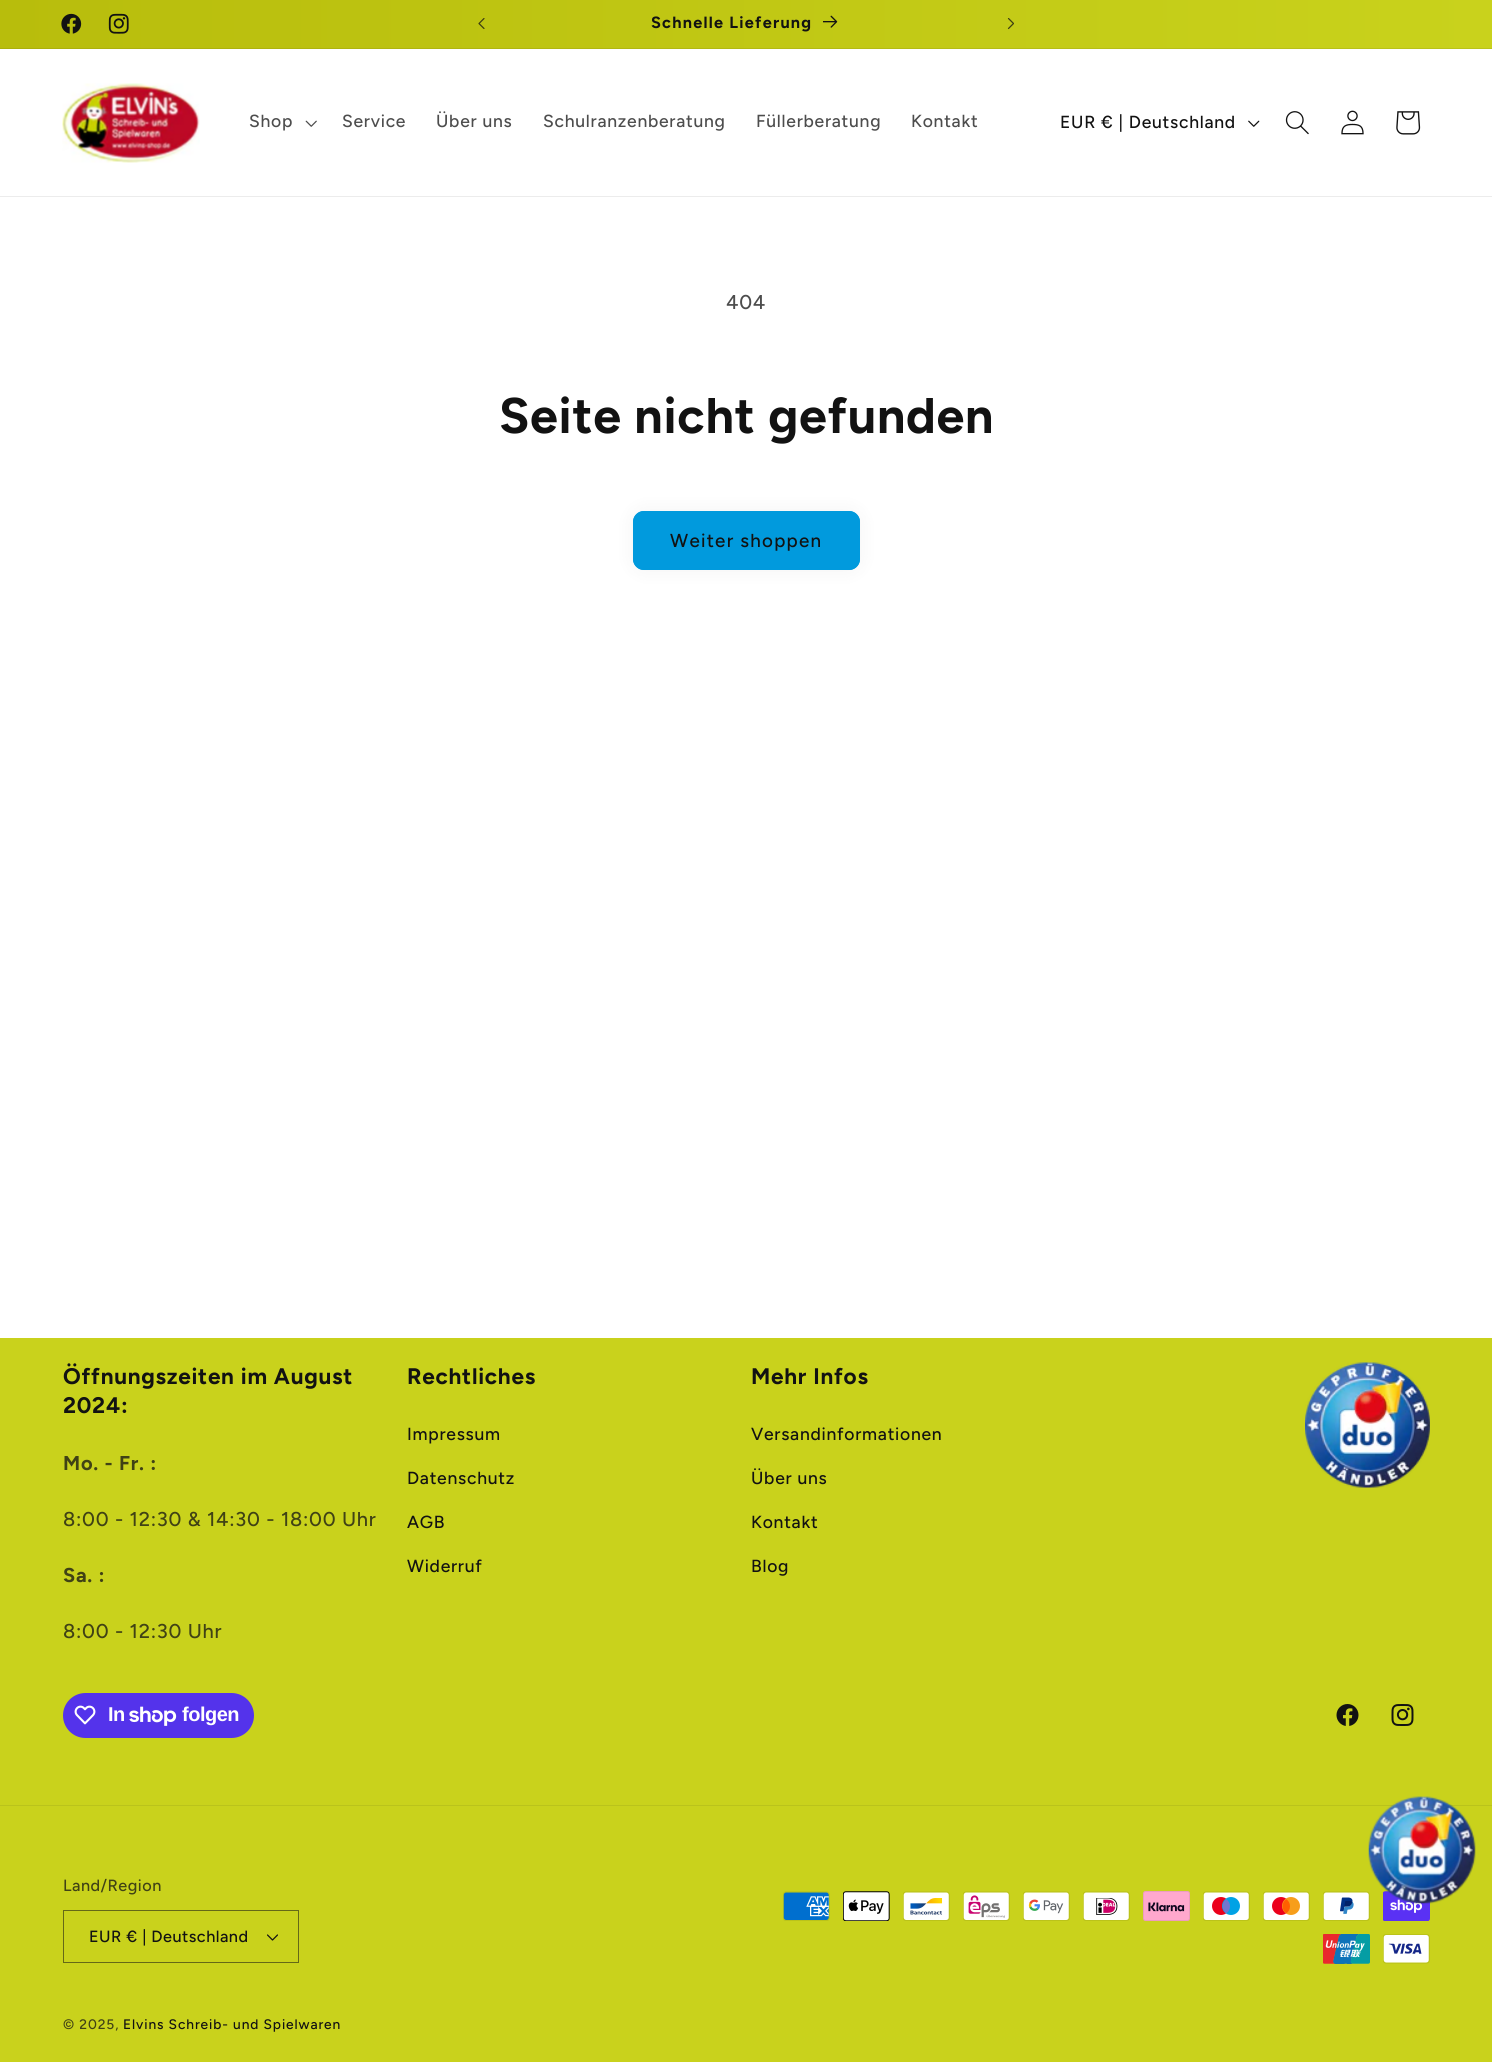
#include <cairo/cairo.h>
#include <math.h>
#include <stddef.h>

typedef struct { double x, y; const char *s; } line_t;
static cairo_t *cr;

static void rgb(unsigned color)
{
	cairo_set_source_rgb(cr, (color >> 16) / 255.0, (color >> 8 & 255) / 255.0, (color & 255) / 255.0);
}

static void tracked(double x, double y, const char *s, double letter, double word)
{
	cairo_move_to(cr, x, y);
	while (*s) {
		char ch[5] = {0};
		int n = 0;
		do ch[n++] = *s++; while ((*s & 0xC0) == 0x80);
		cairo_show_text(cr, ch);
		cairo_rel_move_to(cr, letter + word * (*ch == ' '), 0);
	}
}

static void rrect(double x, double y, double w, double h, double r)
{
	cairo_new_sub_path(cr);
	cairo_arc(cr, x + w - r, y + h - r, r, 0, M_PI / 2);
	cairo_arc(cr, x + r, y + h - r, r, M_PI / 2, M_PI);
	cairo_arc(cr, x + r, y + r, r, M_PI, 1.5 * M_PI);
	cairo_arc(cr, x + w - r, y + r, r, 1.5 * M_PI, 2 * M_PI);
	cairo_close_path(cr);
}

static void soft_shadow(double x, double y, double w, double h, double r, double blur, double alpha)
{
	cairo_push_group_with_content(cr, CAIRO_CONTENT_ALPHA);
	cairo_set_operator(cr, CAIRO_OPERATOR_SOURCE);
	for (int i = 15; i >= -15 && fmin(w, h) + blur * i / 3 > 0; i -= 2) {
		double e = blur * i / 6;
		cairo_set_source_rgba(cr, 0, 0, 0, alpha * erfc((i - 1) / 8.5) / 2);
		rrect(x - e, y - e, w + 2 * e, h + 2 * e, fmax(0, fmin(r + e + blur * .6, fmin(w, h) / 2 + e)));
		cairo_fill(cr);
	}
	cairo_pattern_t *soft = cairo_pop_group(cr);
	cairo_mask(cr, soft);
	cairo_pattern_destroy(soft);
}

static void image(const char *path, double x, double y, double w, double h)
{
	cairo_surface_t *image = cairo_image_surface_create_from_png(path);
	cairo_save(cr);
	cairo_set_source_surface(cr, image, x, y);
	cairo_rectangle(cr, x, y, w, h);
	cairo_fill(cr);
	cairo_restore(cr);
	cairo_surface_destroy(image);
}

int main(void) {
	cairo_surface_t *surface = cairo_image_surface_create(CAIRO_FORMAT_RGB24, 1492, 2062);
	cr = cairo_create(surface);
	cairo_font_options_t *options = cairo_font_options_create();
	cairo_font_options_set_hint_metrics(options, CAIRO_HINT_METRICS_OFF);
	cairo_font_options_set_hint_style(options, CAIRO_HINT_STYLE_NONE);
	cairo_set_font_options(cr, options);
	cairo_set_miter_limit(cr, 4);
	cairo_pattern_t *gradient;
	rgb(0xffffff);
	cairo_paint(cr);
	gradient = cairo_pattern_create_linear(0, 1031, 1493, 1031);
	cairo_pattern_add_color_stop_rgba(gradient, 0, 0.722, 0.741, 0.047, 1);
	cairo_pattern_add_color_stop_rgba(gradient, 1, 0.788, 0.824, 0.11, 1);
	cairo_set_source(cr, gradient);
	cairo_pattern_destroy(gradient);
	cairo_rectangle(cr, 0, 0, 1492, 48);
	cairo_fill(cr);
	gradient = cairo_pattern_create_linear(0, 1031, 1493, 1031);
	cairo_pattern_add_color_stop_rgba(gradient, 0, 0.671, 0.686, 0.047, 1);
	cairo_pattern_add_color_stop_rgba(gradient, 1, 0.729, 0.765, 0.106, 1);
	cairo_set_source(cr, gradient);
	cairo_pattern_destroy(gradient);
	cairo_rectangle(cr, 0, 48, 1492, 1);
	cairo_fill(cr);
	image("img/1.png", 61, 13, 21, 21);
	image("img/2.png", 108, 13, 21, 21);
	image("img/3.png", 478, 18, 7, 11);
	image("img/4.png", 823, 15, 15, 13);
	image("img/5.png", 1007, 18, 7, 12);
	rgb(0xececec);
	cairo_rectangle(cr, 0, 196, 1492, 1);
	cairo_fill(cr);
	image("img/6.png", 62, 83, 138, 80);
	image("img/7.png", 305, 120, 12, 7);
	image("img/8.png", 1248, 120, 12, 7);
	image("img/9.png", 1285, 111, 24, 24);
	image("img/10.png", 1341, 110, 23, 25);
	image("img/11.png", 1396, 111, 25, 24);
	rgb(0x121212);
	soft_shadow(633, 511, 227, 59, 11, 9.5, 0.05);
	rgb(0x019add);
	rrect(633, 511, 227, 59, 11);
	cairo_fill(cr);
	rrect(633.5, 511.5, 226, 58, 10.5);
	cairo_set_line_width(cr, 1);
	cairo_stroke(cr);
	rgb(0xc9d21c);
	cairo_rectangle(cr, 0, 1338, 1492, 724);
	cairo_fill(cr);
	image("img/12.png", 1305, 1362, 125, 126);
	rgb(0x5433eb);
	rrect(63, 1693, 191, 45, 22.5);
	cairo_fill(cr);
	image("img/13.png", 74, 1705, 22, 20);
	image("img/14.png", 129, 1706, 48, 20);
	image("img/15.png", 1336, 1704, 23, 22);
	image("img/16.png", 1391, 1704, 23, 22);
	rgb(0xbac31b);
	cairo_rectangle(cr, 0, 1805, 1492, 1);
	cairo_fill(cr);
	image("img/17.png", 267, 1934, 11, 7);
	cairo_rectangle(cr, 63.5, 1910.5, 235, 52);
	rgb(0x646817);
	cairo_stroke(cr);
	image("img/18.png", 783, 1891, 47, 30);
	image("img/19.png", 843, 1891, 47, 30);
	image("img/20.png", 903, 1891, 47, 30);
	image("img/21.png", 963, 1891, 47, 30);
	image("img/22.png", 1023, 1891, 47, 30);
	image("img/23.png", 1083, 1891, 47, 30);
	image("img/24.png", 1143, 1891, 47, 30);
	image("img/25.png", 1203, 1891, 47, 30);
	image("img/26.png", 1263, 1891, 47, 30);
	image("img/27.png", 1323, 1891, 47, 30);
	image("img/28.png", 1383, 1891, 47, 30);
	image("img/29.png", 1323, 1934, 47, 30);
	image("img/30.png", 1383, 1934, 47, 30);
	image("img/31.png", 1368, 1796, 108, 108);
	cairo_select_font_face(cr, "Figtree", CAIRO_FONT_SLANT_NORMAL, CAIRO_FONT_WEIGHT_BOLD);
	cairo_set_font_size(cr, 16.25);
	rgb(0x121212);
	tracked(651, 28, "Schnelle Lieferung", 1.25, 0);
	cairo_select_font_face(cr, "Figtree Medium", CAIRO_FONT_SLANT_NORMAL, CAIRO_FONT_WEIGHT_NORMAL);
	cairo_set_font_size(cr, 17.5);
	rgb(0x4d4d4d);
	{
		static const line_t items[] = {
			{249, 127, "Shop"},
			{342, 127, "Service"},
			{436, 127, "Über uns"},
			{543, 127, "Schulranzenberatung"},
			{756, 127, "Füllerberatung"},
			{911, 127, "Kontakt"},
		};
		for (size_t i = 0; i < sizeof items / sizeof *items; i++) {
			tracked(items[i].x, items[i].y, items[i].s, 0.75, 0);
		}
	}
	rgb(0x121212);
	tracked(1060, 128, "EUR € | Deutschland", 0.75, 0);
	cairo_set_font_size(cr, 20);
	rgb(0x4d4d4d);
	tracked(726, 309, "404", 0.75, 0);
	cairo_select_font_face(cr, "Figtree", CAIRO_FONT_SLANT_NORMAL, CAIRO_FONT_WEIGHT_BOLD);
	cairo_set_font_size(cr, 50);
	rgb(0x121212);
	tracked(499, 433, "Seite nicht gefunden", 0.75, 0);
	cairo_select_font_face(cr, "Figtree Medium", CAIRO_FONT_SLANT_NORMAL, CAIRO_FONT_WEIGHT_NORMAL);
	cairo_set_font_size(cr, 18.75);
	tracked(670, 547, "Weiter shoppen", 1.25, 0);
	cairo_select_font_face(cr, "Figtree", CAIRO_FONT_SLANT_NORMAL, CAIRO_FONT_WEIGHT_BOLD);
	cairo_set_font_size(cr, 22.5);
	tracked(63, 1384, "Öffnungszeiten im August", 0.75, 0);
	tracked(63, 1413, "2024:", 0.75, 0);
	cairo_set_font_size(cr, 20);
	rgb(0x404215);
	tracked(63, 1470, "Mo. - Fr. :", 0.75, 0);
	cairo_select_font_face(cr, "Figtree Medium", CAIRO_FONT_SLANT_NORMAL, CAIRO_FONT_WEIGHT_NORMAL);
	tracked(63, 1526, "8:00 - 12:30 & 14:30 - 18:00 Uhr", 0.75, 0);
	cairo_select_font_face(cr, "Figtree", CAIRO_FONT_SLANT_NORMAL, CAIRO_FONT_WEIGHT_BOLD);
	tracked(63, 1582, "Sa. :", 0.75, 0);
	cairo_select_font_face(cr, "Figtree Medium", CAIRO_FONT_SLANT_NORMAL, CAIRO_FONT_WEIGHT_NORMAL);
	tracked(63, 1638, "8:00 - 12:30 Uhr", 0.75, 0);
	cairo_select_font_face(cr, "Figtree", CAIRO_FONT_SLANT_NORMAL, CAIRO_FONT_WEIGHT_BOLD);
	cairo_set_font_size(cr, 22.5);
	rgb(0x121212);
	tracked(407, 1384, "Rechtliches", 0.75, 0);
	cairo_select_font_face(cr, "Figtree Medium", CAIRO_FONT_SLANT_NORMAL, CAIRO_FONT_WEIGHT_NORMAL);
	cairo_set_font_size(cr, 17.5);
	{
		static const line_t items[] = {
			{407, 1440, "Impressum"},
			{407, 1484, "Datenschutz"},
			{407, 1528, "AGB"},
			{407, 1572, "Widerruf"},
		};
		for (size_t i = 0; i < sizeof items / sizeof *items; i++) {
			tracked(items[i].x, items[i].y, items[i].s, 0.75, 0);
		}
	}
	cairo_select_font_face(cr, "Figtree", CAIRO_FONT_SLANT_NORMAL, CAIRO_FONT_WEIGHT_BOLD);
	cairo_set_font_size(cr, 22.5);
	tracked(751, 1384, "Mehr Infos", 0.75, 0);
	cairo_select_font_face(cr, "Figtree Medium", CAIRO_FONT_SLANT_NORMAL, CAIRO_FONT_WEIGHT_NORMAL);
	cairo_set_font_size(cr, 17.5);
	{
		static const line_t items[] = {
			{751, 1440, "Versandinformationen"},
			{751, 1484, "Über uns"},
			{751, 1528, "Kontakt"},
			{751, 1572, "Blog"},
		};
		for (size_t i = 0; i < sizeof items / sizeof *items; i++) {
			tracked(items[i].x, items[i].y, items[i].s, 0.75, 0);
		}
	}
	cairo_select_font_face(cr, "Liberation Sans", CAIRO_FONT_SLANT_NORMAL, CAIRO_FONT_WEIGHT_BOLD);
	cairo_set_font_size(cr, 20);
	rgb(0xffffff);
	tracked(108, 1721, "In", -0.5, 0);
	tracked(182, 1721, "folgen", -0.5, 0);
	cairo_select_font_face(cr, "Figtree Medium", CAIRO_FONT_SLANT_NORMAL, CAIRO_FONT_WEIGHT_NORMAL);
	cairo_set_font_size(cr, 16.25);
	rgb(0x404215);
	tracked(63, 1891, "Land/Region", 0.5, 0);
	rgb(0x121212);
	tracked(89, 1942, "EUR € | Deutschland", 0.5, 0);
	cairo_set_font_size(cr, 13.75);
	rgb(0x404215);
	tracked(63, 2029, "© 2025,", 0.9, 0);
	rgb(0x121212);
	tracked(123, 2029, "Elvins Schreib- und Spielwaren", 0.9, 0);
	cairo_surface_write_to_png(surface, "page.png");
	cairo_font_options_destroy(options);
	cairo_destroy(cr);
	cairo_surface_destroy(surface);
	return 0;
}
